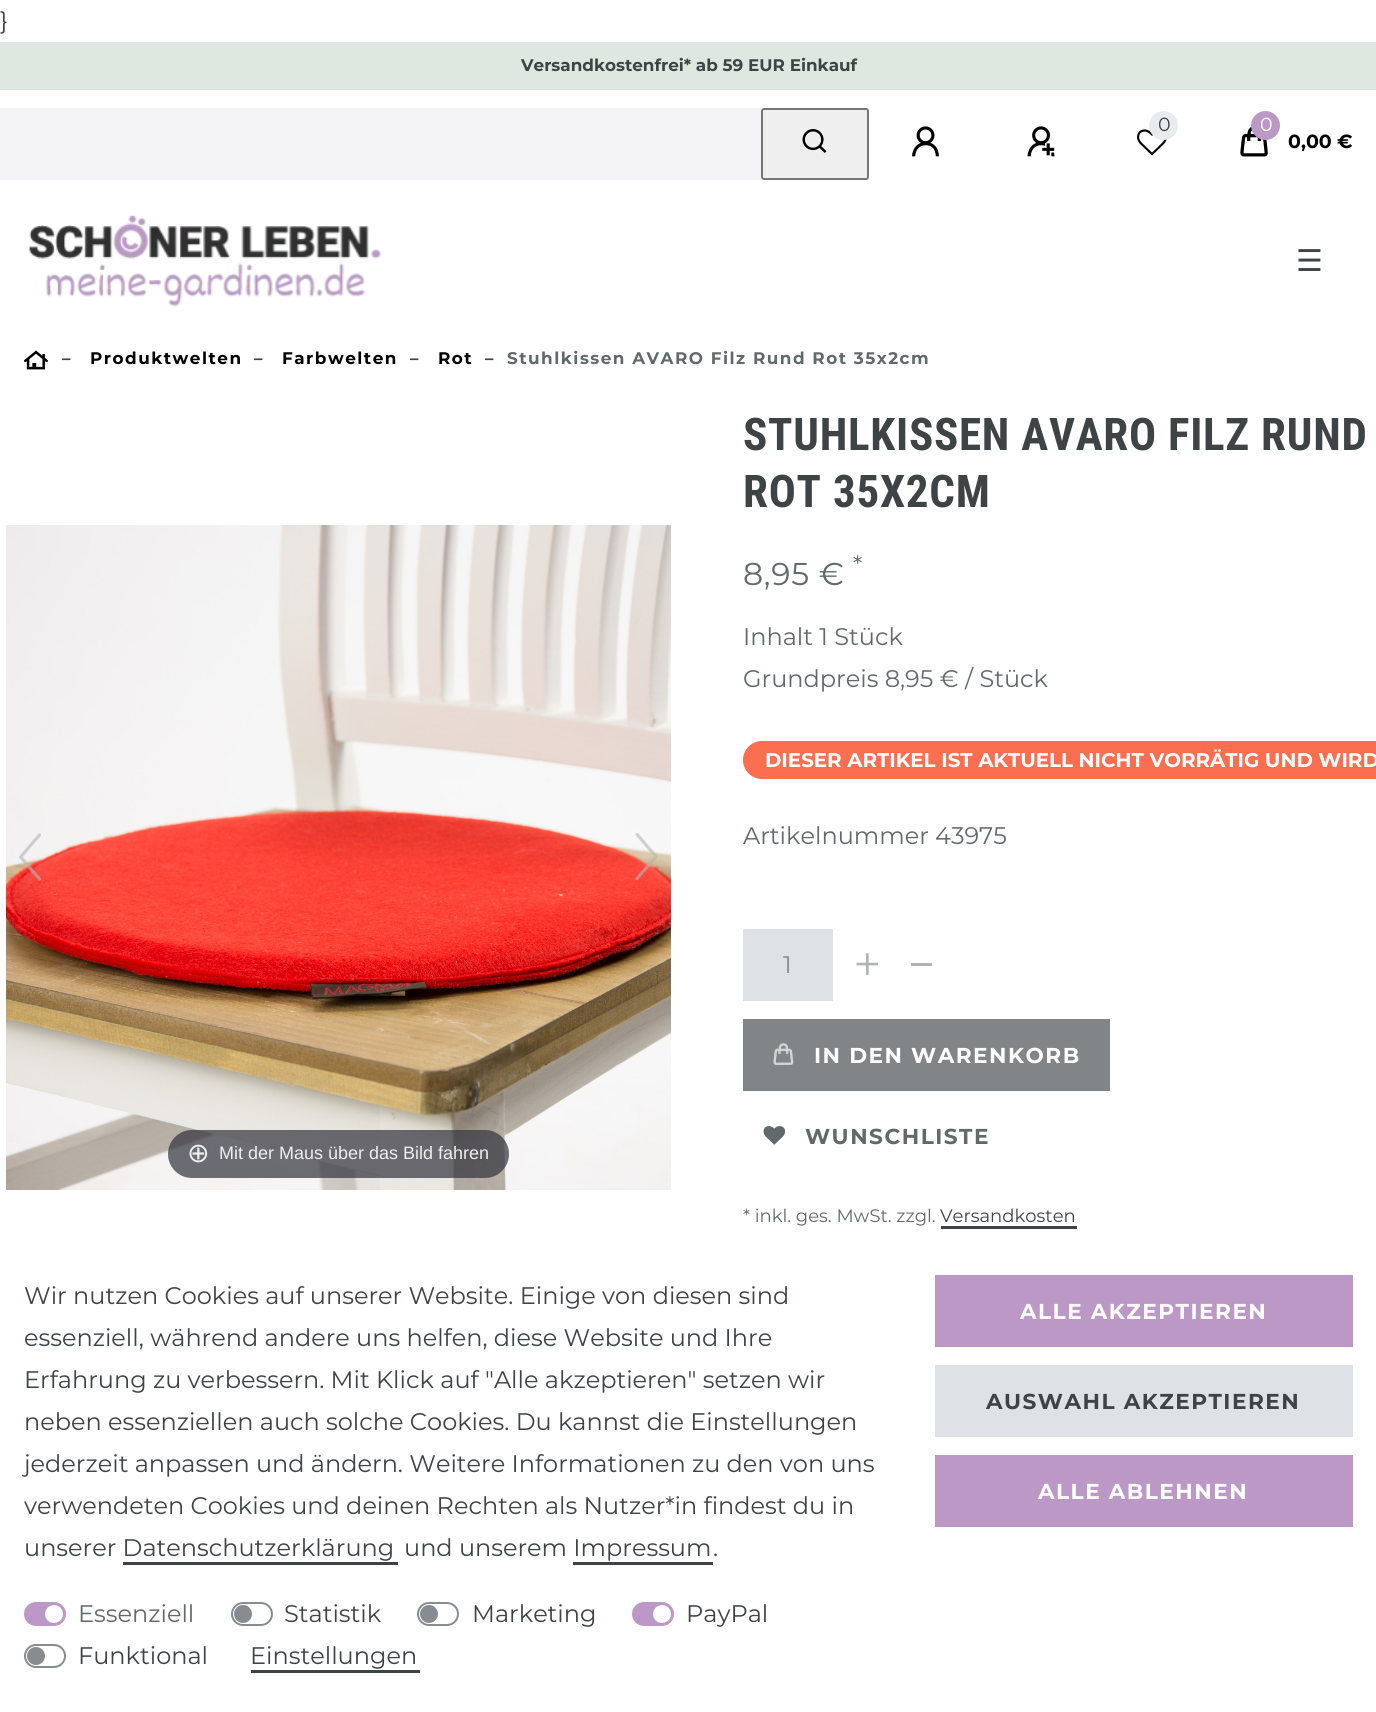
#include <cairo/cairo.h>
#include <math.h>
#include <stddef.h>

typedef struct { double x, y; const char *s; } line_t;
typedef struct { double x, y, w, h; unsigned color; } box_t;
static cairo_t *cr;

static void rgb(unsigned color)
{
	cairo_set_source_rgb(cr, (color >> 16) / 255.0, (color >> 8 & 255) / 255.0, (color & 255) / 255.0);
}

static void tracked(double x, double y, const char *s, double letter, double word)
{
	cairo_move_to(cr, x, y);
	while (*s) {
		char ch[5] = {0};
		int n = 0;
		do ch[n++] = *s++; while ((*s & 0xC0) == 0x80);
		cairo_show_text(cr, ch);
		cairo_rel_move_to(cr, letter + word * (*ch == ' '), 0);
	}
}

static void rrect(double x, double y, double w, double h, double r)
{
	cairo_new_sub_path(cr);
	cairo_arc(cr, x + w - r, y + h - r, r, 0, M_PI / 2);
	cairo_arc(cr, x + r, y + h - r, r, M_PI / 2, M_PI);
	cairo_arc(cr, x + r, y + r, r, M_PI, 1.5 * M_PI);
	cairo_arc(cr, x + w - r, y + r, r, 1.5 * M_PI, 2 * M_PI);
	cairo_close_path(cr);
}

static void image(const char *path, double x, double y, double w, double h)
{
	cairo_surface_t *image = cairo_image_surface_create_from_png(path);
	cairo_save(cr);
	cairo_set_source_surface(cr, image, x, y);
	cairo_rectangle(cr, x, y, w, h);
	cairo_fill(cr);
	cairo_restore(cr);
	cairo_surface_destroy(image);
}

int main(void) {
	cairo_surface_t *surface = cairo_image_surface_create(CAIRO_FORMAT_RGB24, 1376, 1712);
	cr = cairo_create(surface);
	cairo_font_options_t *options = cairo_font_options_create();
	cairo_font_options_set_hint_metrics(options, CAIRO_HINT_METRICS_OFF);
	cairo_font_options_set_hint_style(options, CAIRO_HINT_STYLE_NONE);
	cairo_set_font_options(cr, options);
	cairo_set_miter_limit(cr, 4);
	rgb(0xffffff);
	cairo_paint(cr);
	rgb(0xdee8e0);
	cairo_rectangle(cr, 0, 42, 1376, 48);
	cairo_fill(cr);
	rgb(0xf4f4f6);
	cairo_rectangle(cr, 0, 108, 761, 72);
	cairo_fill(cr);
	rgb(0xefefef);
	rrect(762, 109, 106, 70, 2);
	cairo_fill_preserve(cr);
	rgb(0x767676);
	cairo_stroke(cr);
	image("img/1.png", 802, 129, 25, 24);
	image("img/2.png", 912, 126, 27, 31);
	image("img/3.png", 1027, 126, 28, 31);
	image("img/4.png", 1137, 129, 30, 27);
	rgb(0xe9ecef);
	cairo_arc(cr, 1163.5, 125.5, 14.5, 0, 2 * M_PI);
	cairo_fill(cr);
	image("img/5.png", 1240, 126, 28, 31);
	rgb(0xbc98c6);
	cairo_arc(cr, 1265.5, 125.5, 14.5, 0, 2 * M_PI);
	cairo_fill(cr);
	image("img/6.png", 29, 215, 352, 91);
	image("img/7.png", 24, 350, 24, 20);
	image("img/8.png", 6, 525, 665, 665);
	image("img/9.png", 19, 833, 22, 48);
	image("img/10.png", 635, 833, 23, 48);
	cairo_set_source_rgba(cr, 0.192, 0.2, 0.239, 0.7);
	rrect(168, 1130, 341, 48, 24);
	cairo_fill(cr);
	rgb(0xfb6e50);
	cairo_new_path(cr);
	cairo_move_to(cr, 762, 741);
	cairo_line_to(cr, 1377, 741);
	cairo_line_to(cr, 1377, 779);
	cairo_line_to(cr, 762, 779);
	cairo_curve_to(cr, 751.5, 779, 743, 770.5, 743, 760);
	cairo_curve_to(cr, 743, 749.5, 751.5, 741, 762, 741);
	cairo_close_path(cr);
	cairo_fill(cr);
	rgb(0xdee2e6);
	cairo_rectangle(cr, 743, 929, 90, 72);
	cairo_fill(cr);
	image("img/11.png", 856, 953, 23, 22);
	rgb(0xb1b4b7);
	cairo_rectangle(cr, 911, 963, 21, 3);
	cairo_fill(cr);
	rgb(0x828587);
	cairo_rectangle(cr, 743, 1019, 367, 72);
	cairo_fill(cr);
	image("img/12.png", 773, 1043, 21, 22);
	image("img/13.png", 763, 1126, 23, 19);
	{
		static const box_t items[] = {
			{941, 1226, 136, 3, 0x3e4346},
			{123, 1562, 275, 3, 0x3e4346},
			{573, 1562, 140, 3, 0x3e4346},
		};
		for (size_t i = 0; i < sizeof items / sizeof *items; i++) {
			rgb(items[i].color);
			cairo_rectangle(cr, items[i].x, items[i].y, items[i].w, items[i].h);
			cairo_fill(cr);
		}
	}
	rgb(0xbc98c6);
	rrect(25, 1603, 40, 22, 11);
	cairo_fill_preserve(cr);
	cairo_stroke(cr);
	rgb(0xffffff);
	cairo_arc(cr, 54, 1614, 9, 0, 2 * M_PI);
	cairo_fill(cr);
	rrect(232, 1603, 40, 22, 11);
	rgb(0x878c90);
	cairo_stroke(cr);
	cairo_arc(cr, 243, 1614, 9, 0, 2 * M_PI);
	cairo_fill(cr);
	rrect(418, 1603, 40, 22, 11);
	cairo_stroke(cr);
	cairo_arc(cr, 429, 1614, 9, 0, 2 * M_PI);
	cairo_fill(cr);
	rgb(0xbc98c6);
	rrect(633, 1603, 40, 22, 11);
	cairo_fill_preserve(cr);
	cairo_stroke(cr);
	rgb(0xffffff);
	cairo_arc(cr, 662, 1614, 9, 0, 2 * M_PI);
	cairo_fill(cr);
	rrect(25, 1645, 40, 22, 11);
	rgb(0x878c90);
	cairo_stroke(cr);
	cairo_arc(cr, 36, 1656, 9, 0, 2 * M_PI);
	cairo_fill(cr);
	{
		static const box_t items[] = {
			{251, 1670, 169, 3, 0x3e4346},
			{935, 1275, 418, 72, 0xbc98c6},
			{935, 1365, 418, 72, 0xdee2e6},
			{935, 1455, 418, 72, 0xbc98c6},
		};
		for (size_t i = 0; i < sizeof items / sizeof *items; i++) {
			rgb(items[i].color);
			cairo_rectangle(cr, items[i].x, items[i].y, items[i].w, items[i].h);
			cairo_fill(cr);
		}
	}
	cairo_select_font_face(cr, "Montserrat", CAIRO_FONT_SLANT_NORMAL, CAIRO_FONT_WEIGHT_NORMAL);
	cairo_set_font_size(cr, 24);
	rgb(0x3e4346);
	cairo_move_to(cr, 0, 29);
	cairo_show_text(cr, "}");
	cairo_select_font_face(cr, "Montserrat", CAIRO_FONT_SLANT_NORMAL, CAIRO_FONT_WEIGHT_BOLD);
	cairo_set_font_size(cr, 16.8);
	cairo_move_to(cr, 521, 71);
	cairo_show_text(cr, "Versandkostenfrei* ab 59 EUR Einkauf");
	cairo_select_font_face(cr, "Montserrat", CAIRO_FONT_SLANT_NORMAL, CAIRO_FONT_WEIGHT_NORMAL);
	cairo_set_font_size(cr, 19);
	cairo_move_to(cr, 1158, 131);
	cairo_show_text(cr, "0");
	rgb(0xffffff);
	cairo_move_to(cr, 1260, 131);
	cairo_show_text(cr, "0");
	cairo_select_font_face(cr, "Montserrat", CAIRO_FONT_SLANT_NORMAL, CAIRO_FONT_WEIGHT_BOLD);
	rgb(0x000000);
	cairo_move_to(cr, 1288, 148);
	cairo_show_text(cr, "0,00 €");
	cairo_select_font_face(cr, "DejaVu Sans", CAIRO_FONT_SLANT_NORMAL, CAIRO_FONT_WEIGHT_NORMAL);
	cairo_set_font_size(cr, 30);
	rgb(0x3e4346);
	cairo_move_to(cr, 1296, 271);
	cairo_show_text(cr, "☰");
	cairo_select_font_face(cr, "Montserrat", CAIRO_FONT_SLANT_NORMAL, CAIRO_FONT_WEIGHT_BOLD);
	cairo_set_font_size(cr, 16.8);
	tracked(62, 364, "–", 1.5, 0);
	rgb(0x000000);
	tracked(90, 364, "Produktwelten", 1.5, 0);
	rgb(0x3e4346);
	tracked(254, 364, "–", 1.5, 0);
	rgb(0x000000);
	tracked(282, 364, "Farbwelten", 1.5, 0);
	rgb(0x3e4346);
	tracked(410, 364, "–", 1.5, 0);
	rgb(0x000000);
	tracked(438, 364, "Rot", 1.5, 0);
	rgb(0x3e4346);
	tracked(485, 364, "–", 1.5, 0);
	rgb(0x61696a);
	tracked(507, 364, "Stuhlkissen AVARO Filz Rund Rot 35x2cm", 1.5, 0);
	cairo_select_font_face(cr, "DejaVu Sans", CAIRO_FONT_SLANT_NORMAL, CAIRO_FONT_WEIGHT_NORMAL);
	cairo_set_font_size(cr, 27);
	rgb(0xeeeeee);
	cairo_move_to(cr, 187, 1162);
	cairo_show_text(cr, "⊕");
	cairo_select_font_face(cr, "Liberation Sans", CAIRO_FONT_SLANT_NORMAL, CAIRO_FONT_WEIGHT_NORMAL);
	cairo_set_font_size(cr, 18);
	cairo_move_to(cr, 219, 1159);
	cairo_show_text(cr, "Mit der Maus über das Bild fahren");
	cairo_select_font_face(cr, "Roboto Condensed", CAIRO_FONT_SLANT_NORMAL, CAIRO_FONT_WEIGHT_BOLD);
	cairo_set_font_size(cr, 45);
	rgb(0x3e4346);
	tracked(743, 450, "STUHLKISSEN AVARO FILZ RUND", 0.75, 0);
	tracked(743, 507, "ROT 35X2CM", 0.75, 0);
	cairo_select_font_face(cr, "Montserrat", CAIRO_FONT_SLANT_NORMAL, CAIRO_FONT_WEIGHT_NORMAL);
	cairo_set_font_size(cr, 24);
	rgb(0x61696a);
	tracked(853, 573, "*", 0.75, 0);
	cairo_set_font_size(cr, 31.5);
	tracked(743, 585, "8,95 €", 0.75, 0);
	cairo_set_font_size(cr, 24);
	cairo_move_to(cr, 743, 645);
	cairo_show_text(cr, "Inhalt 1 Stück");
	cairo_move_to(cr, 743, 687);
	cairo_show_text(cr, "Grundpreis 8,95 € / Stück");
	cairo_select_font_face(cr, "Montserrat", CAIRO_FONT_SLANT_NORMAL, CAIRO_FONT_WEIGHT_BOLD);
	cairo_set_font_size(cr, 19.8);
	rgb(0xffffff);
	cairo_move_to(cr, 765, 767);
	cairo_show_text(cr, "DIESER ARTIKEL IST AKTUELL NICHT VORRÄTIG UND WIRD");
	cairo_select_font_face(cr, "Montserrat", CAIRO_FONT_SLANT_NORMAL, CAIRO_FONT_WEIGHT_NORMAL);
	cairo_set_font_size(cr, 24);
	rgb(0x61696a);
	cairo_move_to(cr, 743, 844);
	cairo_show_text(cr, "Artikelnummer 43975");
	rgb(0x878c90);
	cairo_move_to(cr, 783, 973);
	cairo_show_text(cr, "1");
	cairo_select_font_face(cr, "Montserrat", CAIRO_FONT_SLANT_NORMAL, CAIRO_FONT_WEIGHT_BOLD);
	cairo_set_font_size(cr, 21.6);
	rgb(0xffffff);
	tracked(814, 1063, "IN DEN WARENKORB", 1.5, 0);
	rgb(0x61696a);
	tracked(805, 1144, "WUNSCHLISTE", 1.5, 0);
	cairo_select_font_face(cr, "Montserrat", CAIRO_FONT_SLANT_NORMAL, CAIRO_FONT_WEIGHT_NORMAL);
	cairo_set_font_size(cr, 18);
	cairo_move_to(cr, 743, 1222);
	cairo_show_text(cr, "* inkl. ges. MwSt. zzgl.");
	rgb(0x3e4346);
	cairo_move_to(cr, 940, 1222);
	cairo_show_text(cr, "Versandkosten");
	cairo_set_font_size(cr, 24);
	{
		static const line_t items[] = {
			{24, 1304, "Wir nutzen Cookies auf unserer Website. Einige von diesen sind"},
			{24, 1346, "essenziell, während andere uns helfen, diese Website und Ihre"},
			{24, 1388, "Erfahrung zu verbessern. Mit Klick auf \"Alle akzeptieren\" setzen wir"},
			{24, 1430, "neben essenziellen auch solche Cookies. Du kannst die Einstellungen"},
			{24, 1472, "jederzeit anpassen und ändern. Weitere Informationen zu den von uns"},
			{24, 1514, "verwendeten Cookies und deinen Rechten als Nutzer*in findest du in"},
			{24, 1556, "unserer Datenschutzerklärung"},
			{404, 1556, "und unserem Impressum"},
			{713, 1556, "."},
		};
		for (size_t i = 0; i < sizeof items / sizeof *items; i++) {
			cairo_move_to(cr, items[i].x, items[i].y);
			cairo_show_text(cr, items[i].s);
		}
	}
	rgb(0x61696a);
	cairo_move_to(cr, 78, 1622);
	cairo_show_text(cr, "Essenziell");
	rgb(0x3e4346);
	{
		static const line_t items[] = {
			{284, 1622, "Statistik"},
			{472, 1622, "Marketing"},
			{686, 1622, "PayPal"},
			{78, 1664, "Funktional"},
			{250, 1664, "Einstellungen"},
		};
		for (size_t i = 0; i < sizeof items / sizeof *items; i++) {
			cairo_move_to(cr, items[i].x, items[i].y);
			cairo_show_text(cr, items[i].s);
		}
	}
	cairo_select_font_face(cr, "Montserrat", CAIRO_FONT_SLANT_NORMAL, CAIRO_FONT_WEIGHT_BOLD);
	cairo_set_font_size(cr, 21.6);
	rgb(0xffffff);
	tracked(1020, 1319, "ALLE AKZEPTIEREN", 1.5, 0);
	rgb(0x3e4346);
	tracked(986, 1409, "AUSWAHL AKZEPTIEREN", 1.5, 0);
	rgb(0xffffff);
	tracked(1038, 1499, "ALLE ABLEHNEN", 1.5, 0);
	cairo_surface_write_to_png(surface, "page.png");
	cairo_font_options_destroy(options);
	cairo_destroy(cr);
	cairo_surface_destroy(surface);
	return 0;
}
